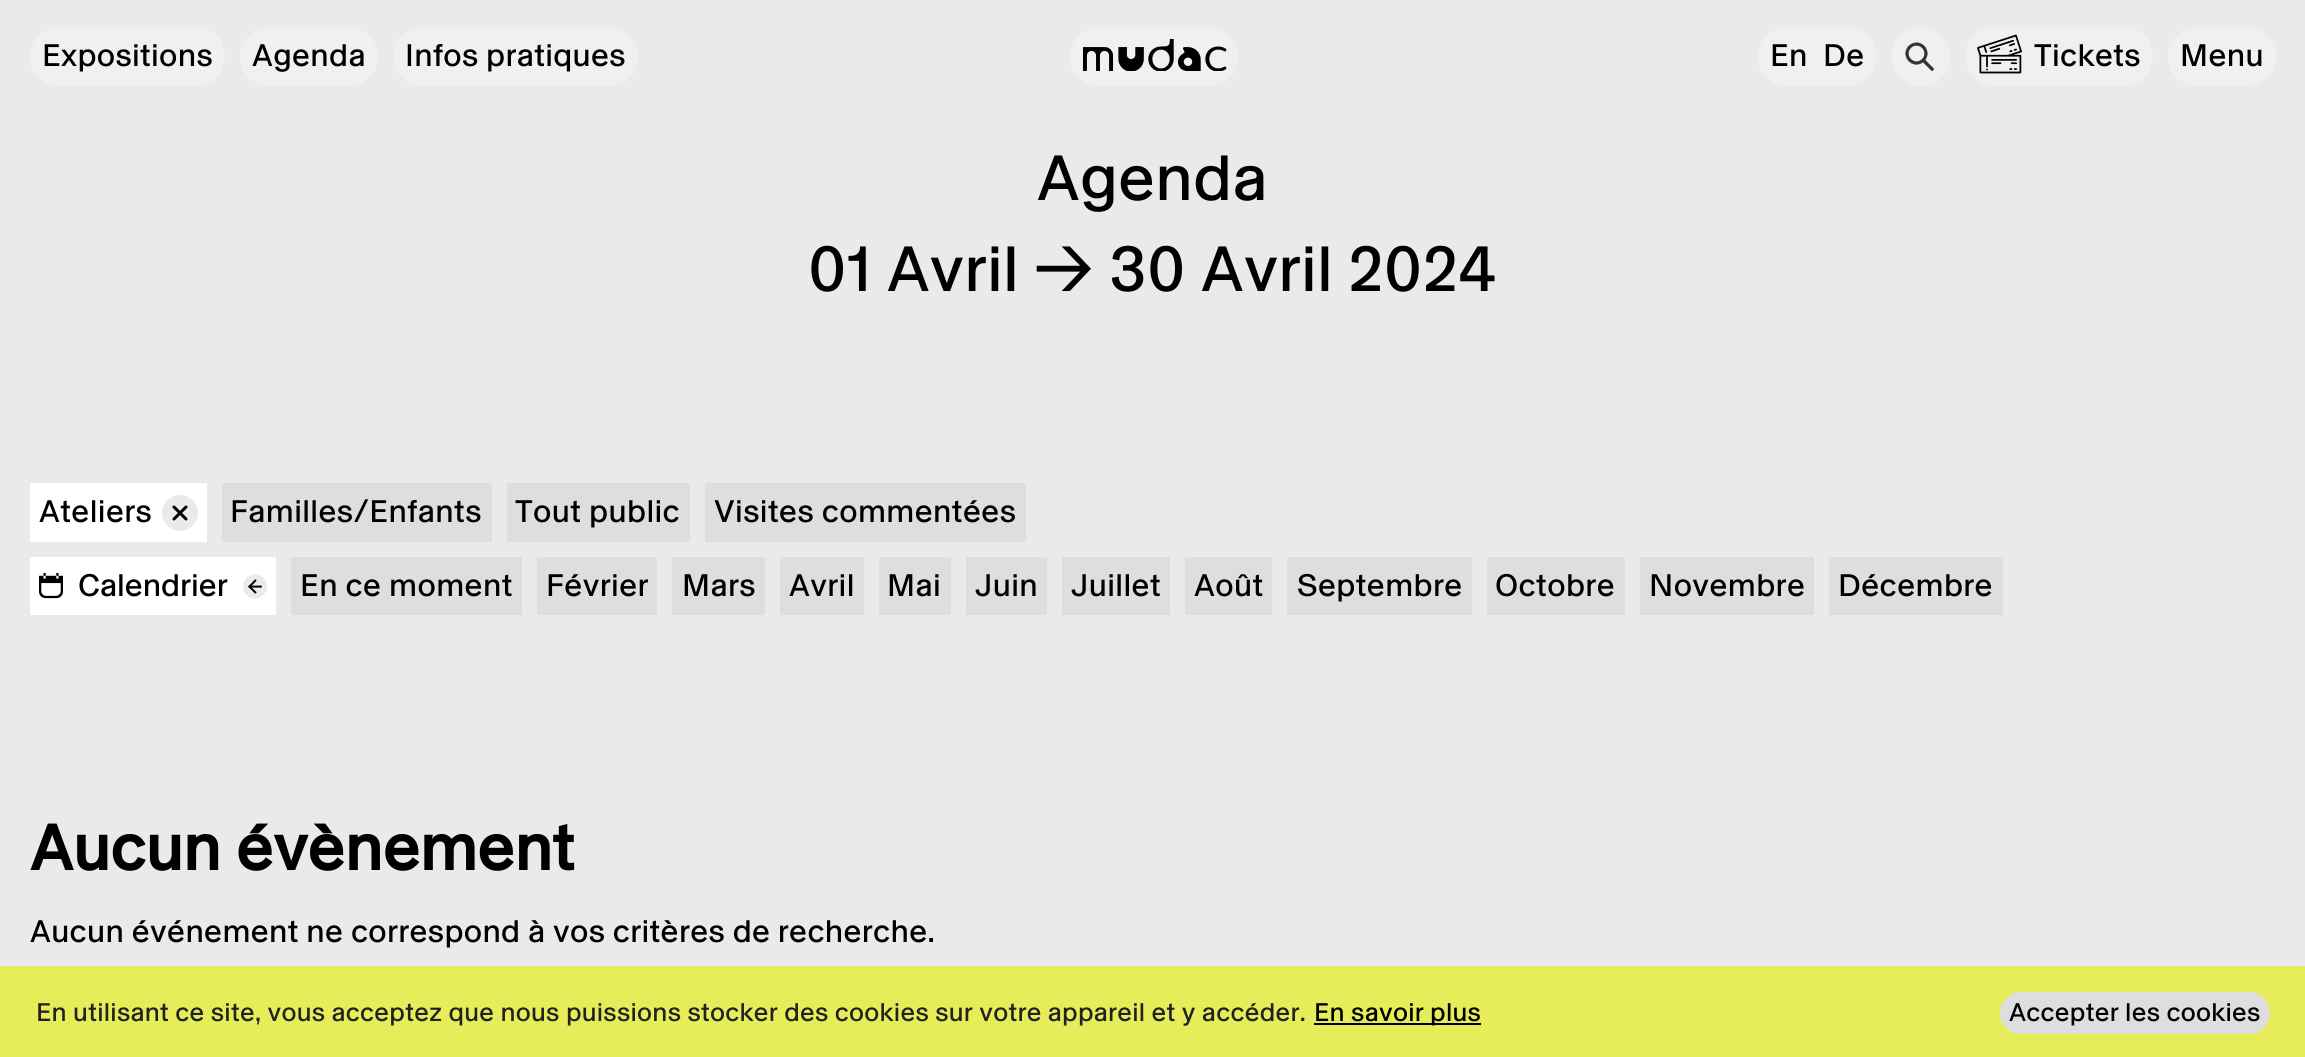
#include <cairo/cairo.h>
#include <math.h>
#include <stddef.h>

typedef struct { double x, y; const char *s; } line_t;
typedef struct { double x, y, w, h; unsigned color; } box_t;
static cairo_t *cr;

static void rgb(unsigned color)
{
	cairo_set_source_rgb(cr, (color >> 16) / 255.0, (color >> 8 & 255) / 255.0, (color & 255) / 255.0);
}

static void tracked(double x, double y, const char *s, double letter, double word)
{
	cairo_move_to(cr, x, y);
	while (*s) {
		char ch[5] = {0};
		int n = 0;
		do ch[n++] = *s++; while ((*s & 0xC0) == 0x80);
		cairo_show_text(cr, ch);
		cairo_rel_move_to(cr, letter + word * (*ch == ' '), 0);
	}
}

static void rrect(double x, double y, double w, double h, double r)
{
	cairo_new_sub_path(cr);
	cairo_arc(cr, x + w - r, y + h - r, r, 0, M_PI / 2);
	cairo_arc(cr, x + r, y + h - r, r, M_PI / 2, M_PI);
	cairo_arc(cr, x + r, y + r, r, M_PI, 1.5 * M_PI);
	cairo_arc(cr, x + w - r, y + r, r, 1.5 * M_PI, 2 * M_PI);
	cairo_close_path(cr);
}

static void image(const char *path, double x, double y, double w, double h)
{
	cairo_surface_t *image = cairo_image_surface_create_from_png(path);
	cairo_save(cr);
	cairo_set_source_surface(cr, image, x, y);
	cairo_rectangle(cr, x, y, w, h);
	cairo_fill(cr);
	cairo_restore(cr);
	cairo_surface_destroy(image);
}

int main(void) {
	cairo_surface_t *surface = cairo_image_surface_create(CAIRO_FORMAT_RGB24, 2305, 1057);
	cr = cairo_create(surface);
	cairo_font_options_t *options = cairo_font_options_create();
	cairo_font_options_set_hint_metrics(options, CAIRO_HINT_METRICS_OFF);
	cairo_font_options_set_hint_style(options, CAIRO_HINT_STYLE_NONE);
	cairo_set_font_options(cr, options);
	cairo_set_miter_limit(cr, 4);
	rgb(0xeaeaea);
	cairo_paint(cr);
	rgb(0xf0f0f0);
	rrect(30, 27, 195, 59, 29.5);
	cairo_fill(cr);
	rrect(240, 27, 138, 59, 29.5);
	cairo_fill(cr);
	rrect(393, 27, 245, 59, 29.5);
	cairo_fill(cr);
	rrect(1070, 27, 168, 59, 29.5);
	cairo_fill(cr);
	image("img/1.png", 1083, 39, 144, 32);
	rrect(1758, 27, 119, 59, 29.5);
	cairo_fill(cr);
	rrect(1892, 27, 58, 59, 29);
	cairo_fill(cr);
	image("img/2.png", 1905, 42, 30, 30);
	rrect(1965, 27, 188, 59, 29.5);
	cairo_fill(cr);
	image("img/3.png", 1977, 34, 45, 40);
	rrect(2168, 27, 108, 59, 29.5);
	cairo_fill(cr);
	rgb(0xffffff);
	cairo_rectangle(cr, 30, 483, 177, 59);
	cairo_fill(cr);
	rgb(0xeaeaea);
	cairo_arc(cr, 180, 513, 18, 0, 2 * M_PI);
	cairo_fill(cr);
	cairo_new_path(cr);
	cairo_move_to(cr, 174, 519);
	cairo_line_to(cr, 186, 507);
	cairo_move_to(cr, 186, 519);
	cairo_line_to(cr, 174, 507);
	rgb(0x000000);
	cairo_set_line_width(cr, 3);
	cairo_set_line_cap(cr, CAIRO_LINE_CAP_ROUND);
	cairo_stroke(cr);
	{
		static const box_t items[] = {
			{222, 483, 270, 59, 0xdedede},
			{507, 483, 183, 59, 0xdedede},
			{705, 483, 321, 59, 0xdedede},
			{30, 557, 246, 58, 0xffffff},
		};
		for (size_t i = 0; i < sizeof items / sizeof *items; i++) {
			rgb(items[i].color);
			cairo_rectangle(cr, items[i].x, items[i].y, items[i].w, items[i].h);
			cairo_fill(cr);
		}
	}
	image("img/4.png", 39, 573, 24, 26);
	image("img/5.png", 243, 574, 24, 25);
	{
		static const box_t items[] = {
			{291, 557, 231, 58, 0xdedede},
			{537, 557, 120, 58, 0xdedede},
			{672, 557, 93, 58, 0xdedede},
			{780, 557, 84, 58, 0xdedede},
			{879, 557, 72, 58, 0xdedede},
			{966, 557, 81, 58, 0xdedede},
			{1062, 557, 108, 58, 0xdedede},
			{1185, 557, 87, 58, 0xdedede},
			{1287, 557, 185, 58, 0xdedede},
			{1487, 557, 138, 58, 0xdedede},
			{1640, 557, 174, 58, 0xdedede},
			{1829, 557, 174, 58, 0xdedede},
			{0, 966, 2305, 91, 0xe7ed58},
			{1314, 1023, 167, 2, 0x000000},
		};
		for (size_t i = 0; i < sizeof items / sizeof *items; i++) {
			rgb(items[i].color);
			cairo_rectangle(cr, items[i].x, items[i].y, items[i].w, items[i].h);
			cairo_fill(cr);
		}
	}
	rgb(0xdedede);
	rrect(2000, 992, 270, 42, 21);
	cairo_fill(cr);
	cairo_select_font_face(cr, "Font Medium", CAIRO_FONT_SLANT_NORMAL, CAIRO_FONT_WEIGHT_NORMAL);
	cairo_set_font_size(cr, 33);
	rgb(0x000000);
	{
		static const line_t items[] = {
			{42, 66, "Expositions"},
			{252, 66, "Agenda"},
			{405, 66, "Infos pratiques"},
			{1770, 66, "En"},
			{1823, 66, "De"},
			{2034, 66, "Tickets"},
			{2180, 66, "Menu"},
		};
		for (size_t i = 0; i < sizeof items / sizeof *items; i++) {
			tracked(items[i].x, items[i].y, items[i].s, 0.33, 0);
		}
	}
	cairo_set_font_size(cr, 67.5);
	tracked(1037, 200, "Agenda", 0.33, 0);
	tracked(808, 291, "01 Avril → 30 Avril 2024", 0.33, 0);
	cairo_set_font_size(cr, 33);
	{
		static const line_t items[] = {
			{39, 522, "Ateliers"},
			{230, 522, "Familles/Enfants"},
			{515, 522, "Tout public"},
			{714, 522, "Visites commentées"},
		};
		for (size_t i = 0; i < sizeof items / sizeof *items; i++) {
			tracked(items[i].x, items[i].y, items[i].s, 0.4, 0);
		}
	}
	cairo_move_to(cr, 78, 596);
	cairo_show_text(cr, "Calendrier");
	{
		static const line_t items[] = {
			{300, 596, "En ce moment"},
			{546, 596, "Février"},
			{682, 596, "Mars"},
			{789, 596, "Avril"},
			{887, 596, "Mai"},
			{975, 596, "Juin"},
			{1071, 596, "Juillet"},
			{1194, 596, "Août"},
			{1297, 596, "Septembre"},
			{1495, 596, "Octobre"},
			{1649, 596, "Novembre"},
			{1838, 596, "Décembre"},
		};
		for (size_t i = 0; i < sizeof items / sizeof *items; i++) {
			tracked(items[i].x, items[i].y, items[i].s, 0.4, 0);
		}
	}
	cairo_select_font_face(cr, "Font", CAIRO_FONT_SLANT_NORMAL, CAIRO_FONT_WEIGHT_BOLD);
	cairo_set_font_size(cr, 67.5);
	tracked(30, 870, "Aucun évènement", 0.33, 0);
	cairo_select_font_face(cr, "Font Medium", CAIRO_FONT_SLANT_NORMAL, CAIRO_FONT_WEIGHT_NORMAL);
	cairo_set_font_size(cr, 33);
	tracked(30, 942, "Aucun événement ne correspond à vos critères de recherche.", 0.33, 0);
	cairo_set_font_size(cr, 27);
	rgb(0x212121);
	tracked(36, 1021, "En utilisant ce site, vous acceptez que nous puissions stocker des cookies sur votre appareil et y accéder.", 0.27, 0);
	rgb(0x000000);
	tracked(1314, 1021, "En savoir plus", 0.27, 0);
	tracked(2009, 1021, "Accepter les cookies", 0.27, 0);
	cairo_surface_write_to_png(surface, "page.png");
	cairo_font_options_destroy(options);
	cairo_destroy(cr);
	cairo_surface_destroy(surface);
	return 0;
}
